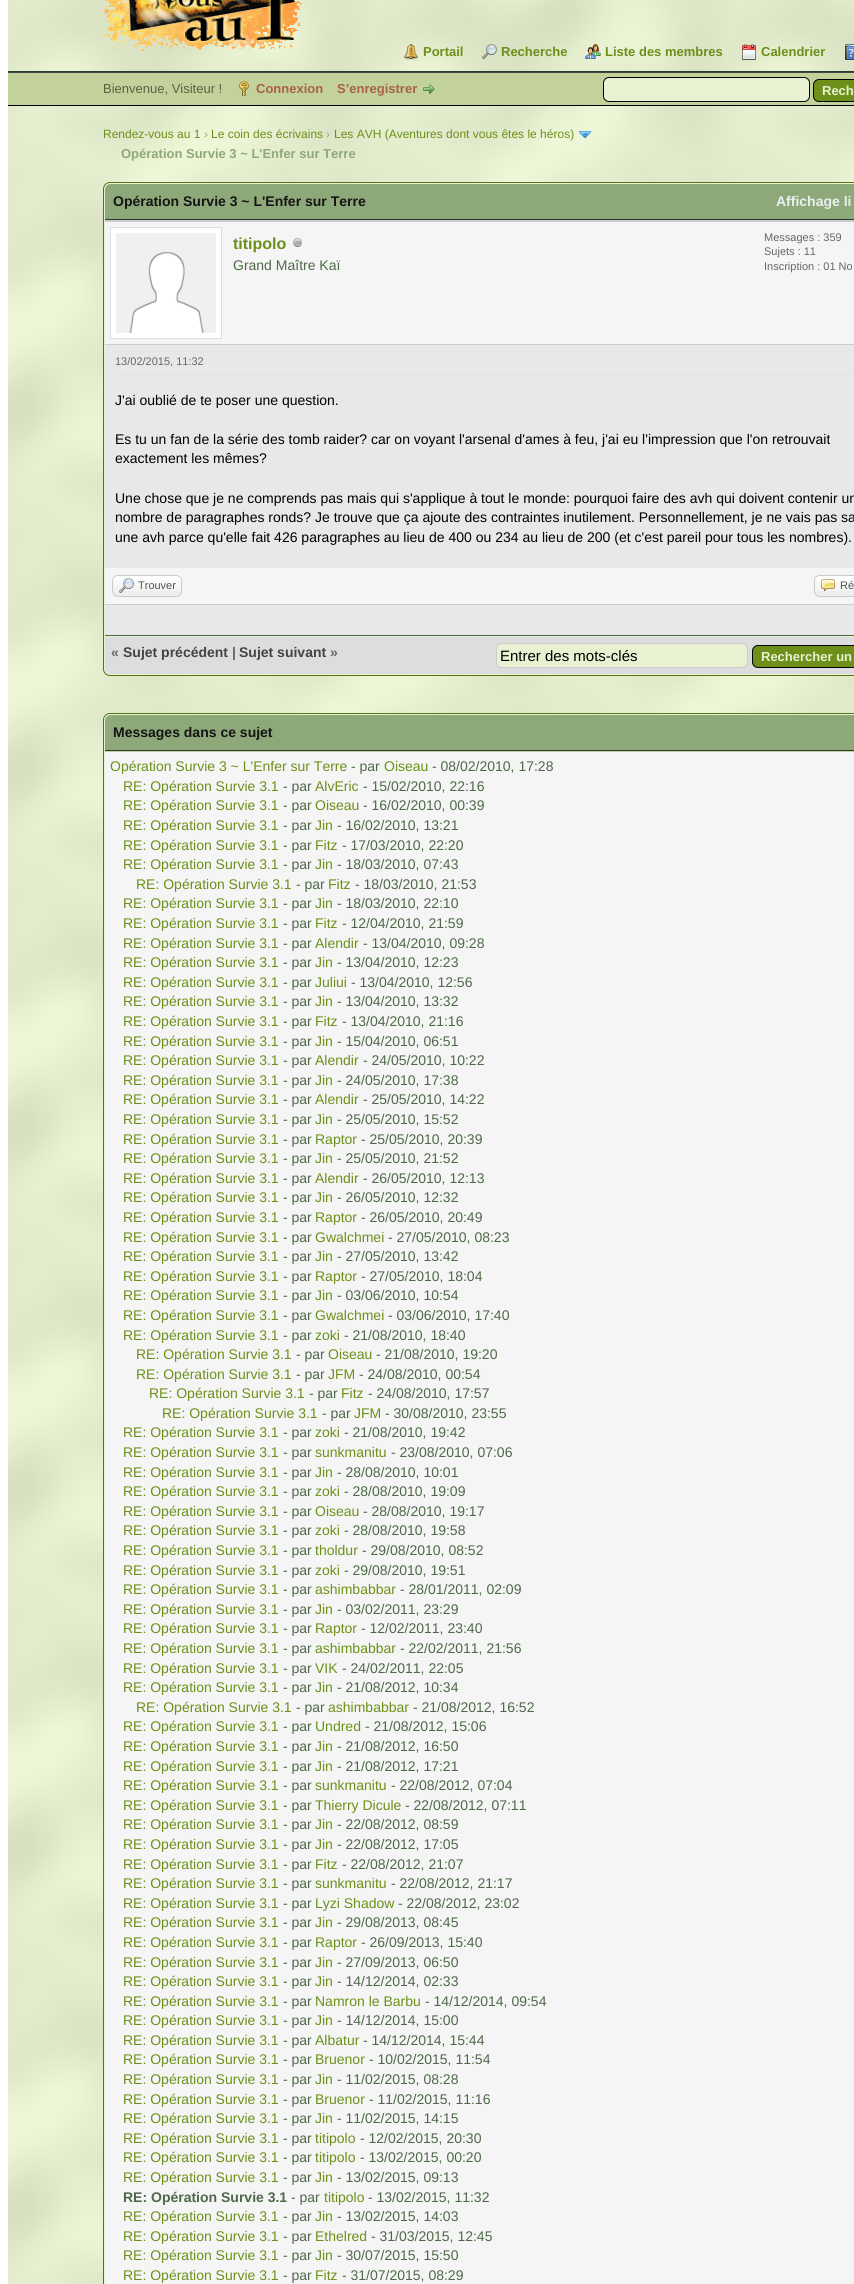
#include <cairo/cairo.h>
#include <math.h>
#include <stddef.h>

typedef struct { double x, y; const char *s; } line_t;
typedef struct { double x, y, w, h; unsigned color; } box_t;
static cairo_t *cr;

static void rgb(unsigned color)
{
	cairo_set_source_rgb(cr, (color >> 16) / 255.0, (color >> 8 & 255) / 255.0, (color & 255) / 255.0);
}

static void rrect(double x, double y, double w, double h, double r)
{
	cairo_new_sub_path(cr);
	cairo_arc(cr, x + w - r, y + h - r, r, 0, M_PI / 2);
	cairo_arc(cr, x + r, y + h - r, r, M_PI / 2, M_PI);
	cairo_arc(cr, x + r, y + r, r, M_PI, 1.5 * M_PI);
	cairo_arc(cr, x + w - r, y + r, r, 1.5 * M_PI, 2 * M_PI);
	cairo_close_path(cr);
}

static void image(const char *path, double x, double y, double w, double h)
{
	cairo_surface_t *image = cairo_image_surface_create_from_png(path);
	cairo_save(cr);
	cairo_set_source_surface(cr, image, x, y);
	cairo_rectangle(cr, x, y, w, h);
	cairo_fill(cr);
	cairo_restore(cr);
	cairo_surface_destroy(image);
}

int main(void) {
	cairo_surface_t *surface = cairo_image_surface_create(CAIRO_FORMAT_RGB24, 854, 2284);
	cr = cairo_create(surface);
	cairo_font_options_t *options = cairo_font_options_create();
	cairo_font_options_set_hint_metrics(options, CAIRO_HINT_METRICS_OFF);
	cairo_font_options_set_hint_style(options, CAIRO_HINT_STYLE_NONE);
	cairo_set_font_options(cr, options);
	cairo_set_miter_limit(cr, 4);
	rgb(0xffffff);
	cairo_paint(cr);
	image("img/1.png", 8, 0, 846, 71);
	rgb(0x263c30);
	cairo_rectangle(cr, 8, 71, 846, 1);
	cairo_fill(cr);
	image("img/2.png", 104, 0, 198, 51);
	image("img/3.png", 404, 44, 14, 16);
	image("img/4.png", 482, 44, 15, 15);
	image("img/5.png", 585, 44, 16, 15);
	image("img/6.png", 742, 44, 14, 16);
	image("img/7.png", 845, 44, 9, 16);
	{
		static const box_t items[] = {
			{8, 73, 846, 32, 0xc2d29a},
			{8, 72, 846, 1, 0x444444},
			{8, 105, 846, 1, 0x000000},
		};
		for (size_t i = 0; i < sizeof items / sizeof *items; i++) {
			rgb(items[i].color);
			cairo_rectangle(cr, items[i].x, items[i].y, items[i].w, items[i].h);
			cairo_fill(cr);
		}
	}
	image("img/8.png", 239, 81, 10, 15);
	image("img/9.png", 423, 84, 12, 10);
	rgb(0xe8f1d1);
	rrect(603.5, 77.5, 206, 24, 5.5);
	cairo_fill_preserve(cr);
	rgb(0x000000);
	cairo_set_line_width(cr, 1);
	cairo_stroke(cr);
	rgb(0x6c9019);
	rrect(813.5, 79.5, 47, 22, 5.5);
	cairo_fill_preserve(cr);
	rgb(0x000000);
	cairo_stroke(cr);
	image("img/10.png", 8, 106, 846, 2178);
	image("img/11.png", 578, 131, 14, 7);
	rgb(0xe8f1d1);
	rrect(103.5, 182.5, 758, 493, 6.5);
	cairo_fill_preserve(cr);
	rgb(0x577314);
	cairo_stroke(cr);
	rgb(0x8ea979);
	cairo_new_path(cr);
	cairo_move_to(cr, 111, 184);
	cairo_line_to(cr, 854, 184);
	cairo_curve_to(cr, 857.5, 184, 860, 186.5, 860, 190);
	cairo_line_to(cr, 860, 220);
	cairo_line_to(cr, 105, 220);
	cairo_line_to(cr, 105, 190);
	cairo_curve_to(cr, 105, 186.5, 107.5, 184, 111, 184);
	cairo_close_path(cr);
	cairo_fill(cr);
	{
		static const box_t items[] = {
			{105, 219, 749, 1, 0x263c30},
			{105, 345, 749, 290, 0xe8e8e8},
			{105, 635, 749, 1, 0x4e6949},
			{105, 222, 749, 122, 0xf5f5f5},
			{105, 220, 749, 2, 0xcccccc},
			{105, 344, 749, 1, 0xcccccc},
		};
		for (size_t i = 0; i < sizeof items / sizeof *items; i++) {
			rgb(items[i].color);
			cairo_rectangle(cr, items[i].x, items[i].y, items[i].w, items[i].h);
			cairo_fill(cr);
		}
	}
	rgb(0xffffff);
	cairo_rectangle(cr, 110.5, 227.5, 111, 111);
	cairo_fill_preserve(cr);
	rgb(0xdddddd);
	cairo_stroke(cr);
	image("img/12.png", 116, 233, 100, 100);
	image("img/13.png", 293, 238, 9, 9);
	cairo_new_path(cr);
	cairo_move_to(cr, 115, 374.5);
	cairo_line_to(cr, 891, 374.5);
	cairo_set_dash(cr, (double[]){1, 1}, 2, 0);
	cairo_stroke(cr);
	rgb(0xf5f5f5);
	cairo_rectangle(cr, 105, 568, 749, 36);
	cairo_fill(cr);
	rgb(0xcccccc);
	cairo_rectangle(cr, 105, 604, 749, 1);
	cairo_fill(cr);
	rgb(0xeeeeee);
	rrect(112, 575, 70, 22, 6);
	cairo_fill(cr);
	image("img/14.png", 112, 576, 70, 15);
	rrect(112.5, 575.5, 69, 21, 5.5);
	rgb(0xcccccc);
	cairo_set_dash(cr, NULL, 0, 0);
	cairo_stroke(cr);
	image("img/15.png", 119, 578, 15, 15);
	rgb(0xeeeeee);
	rrect(814, 575, 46, 22, 6);
	cairo_fill(cr);
	image("img/16.png", 814, 576, 40, 15);
	rrect(814.5, 575.5, 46, 21, 5.5);
	rgb(0xcccccc);
	cairo_stroke(cr);
	image("img/17.png", 821, 579, 14, 12);
	rgb(0xdddddd);
	cairo_new_path(cr);
	cairo_move_to(cr, 105, 636);
	cairo_line_to(cr, 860, 636);
	cairo_line_to(cr, 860, 668);
	cairo_curve_to(cr, 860, 671.5, 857.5, 674, 854, 674);
	cairo_line_to(cr, 111, 674);
	cairo_curve_to(cr, 107.5, 674, 105, 671.5, 105, 668);
	cairo_close_path(cr);
	cairo_fill(cr);
	rgb(0xe8f1d1);
	cairo_rectangle(cr, 105, 636, 749, 1);
	cairo_fill(cr);
	rrect(496.5, 643.5, 251, 24, 5.5);
	cairo_fill_preserve(cr);
	rgb(0xcccccc);
	cairo_stroke(cr);
	rgb(0x6c9019);
	rrect(752.5, 645.5, 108, 22, 5.5);
	cairo_fill_preserve(cr);
	rgb(0x000000);
	cairo_stroke(cr);
	rgb(0xe8f1d1);
	rrect(103.5, 713.5, 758, 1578, 6.5);
	cairo_fill_preserve(cr);
	rgb(0x577314);
	cairo_stroke(cr);
	rgb(0x8ea979);
	cairo_new_path(cr);
	cairo_move_to(cr, 111, 715);
	cairo_line_to(cr, 854, 715);
	cairo_curve_to(cr, 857.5, 715, 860, 717.5, 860, 721);
	cairo_line_to(cr, 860, 751);
	cairo_line_to(cr, 105, 751);
	cairo_line_to(cr, 105, 721);
	cairo_curve_to(cr, 105, 717.5, 107.5, 715, 111, 715);
	cairo_close_path(cr);
	cairo_fill(cr);
	{
		static const box_t items[] = {
			{105, 750, 749, 1, 0x263c30},
			{105, 752, 749, 1532, 0xf5f5f5},
			{105, 751, 749, 1, 0xc2d29a},
		};
		for (size_t i = 0; i < sizeof items / sizeof *items; i++) {
			rgb(items[i].color);
			cairo_rectangle(cr, items[i].x, items[i].y, items[i].w, items[i].h);
			cairo_fill(cr);
		}
	}
	cairo_select_font_face(cr, "Liberation Sans", CAIRO_FONT_SLANT_NORMAL, CAIRO_FONT_WEIGHT_BOLD);
	cairo_set_font_size(cr, 13);
	rgb(0x6c9019);
	{
		static const line_t items[] = {
			{423, 56, "Portail"},
			{501, 56, "Recherche"},
			{605, 56, "Liste des membres"},
			{761, 56, "Calendrier"},
		};
		for (size_t i = 0; i < sizeof items / sizeof *items; i++) {
			cairo_move_to(cr, items[i].x, items[i].y);
			cairo_show_text(cr, items[i].s);
		}
	}
	cairo_select_font_face(cr, "Liberation Sans", CAIRO_FONT_SLANT_NORMAL, CAIRO_FONT_WEIGHT_NORMAL);
	rgb(0x586141);
	cairo_move_to(cr, 103, 93);
	cairo_show_text(cr, "Bienvenue, Visiteur !");
	cairo_select_font_face(cr, "Liberation Sans", CAIRO_FONT_SLANT_NORMAL, CAIRO_FONT_WEIGHT_BOLD);
	rgb(0xa86141);
	cairo_move_to(cr, 256, 93);
	cairo_show_text(cr, "Connexion");
	cairo_move_to(cr, 337, 93);
	cairo_show_text(cr, "S’enregistrer");
	rgb(0xe8f1d1);
	cairo_move_to(cr, 822, 95);
	cairo_show_text(cr, "Rech");
	cairo_select_font_face(cr, "Liberation Sans", CAIRO_FONT_SLANT_NORMAL, CAIRO_FONT_WEIGHT_NORMAL);
	cairo_set_font_size(cr, 12);
	rgb(0x6c9019);
	cairo_move_to(cr, 103, 138);
	cairo_show_text(cr, "Rendez-vous au 1");
	rgb(0x8ea979);
	cairo_move_to(cr, 204, 138);
	cairo_show_text(cr, "›");
	rgb(0x6c9019);
	cairo_move_to(cr, 211, 138);
	cairo_show_text(cr, "Le coin des écrivains");
	rgb(0x8ea979);
	cairo_move_to(cr, 326, 138);
	cairo_show_text(cr, "›");
	rgb(0x6c9019);
	cairo_move_to(cr, 334, 138);
	cairo_show_text(cr, "Les AVH (Aventures dont vous êtes le héros)");
	cairo_select_font_face(cr, "Liberation Sans", CAIRO_FONT_SLANT_NORMAL, CAIRO_FONT_WEIGHT_BOLD);
	cairo_set_font_size(cr, 13);
	rgb(0x8ea979);
	cairo_move_to(cr, 121, 158);
	cairo_show_text(cr, "Opération Survie 3 ~ L'Enfer sur Terre");
	cairo_set_font_size(cr, 14);
	rgb(0x141414);
	cairo_move_to(cr, 113, 206);
	cairo_show_text(cr, "Opération Survie 3 ~ L'Enfer sur Terre");
	rgb(0xe8f1f1);
	cairo_move_to(cr, 776, 206);
	cairo_show_text(cr, "Affichage li");
	cairo_set_font_size(cr, 16);
	rgb(0x6c9019);
	cairo_move_to(cr, 233, 249);
	cairo_show_text(cr, "titipolo");
	cairo_select_font_face(cr, "Liberation Sans", CAIRO_FONT_SLANT_NORMAL, CAIRO_FONT_WEIGHT_NORMAL);
	cairo_set_font_size(cr, 14);
	rgb(0x4e6949);
	cairo_move_to(cr, 233, 270);
	cairo_show_text(cr, "Grand Maître Kaï");
	cairo_set_font_size(cr, 11);
	rgb(0x666666);
	{
		static const line_t items[] = {
			{764, 241, "Messages : 359"},
			{764, 255, "Sujets : 11"},
			{764, 270, "Inscription : 01 No"},
			{115, 365, "13/02/2015, 11:32"},
		};
		for (size_t i = 0; i < sizeof items / sizeof *items; i++) {
			cairo_move_to(cr, items[i].x, items[i].y);
			cairo_show_text(cr, items[i].s);
		}
	}
	cairo_set_font_size(cr, 14);
	rgb(0x000000);
	{
		static const line_t items[] = {
			{115, 405, "J'ai oublié de te poser une question."},
			{115, 444, "Es tu un fan de la série des tomb raider? car on voyant l'arsenal d'ames à feu, j'ai eu l'impression que l'on retrouvait"},
			{115, 463, "exactement les mêmes?"},
			{115, 503, "Une chose que je ne comprends pas mais qui s'applique à tout le monde: pourquoi faire des avh qui doivent contenir un"},
			{115, 522, "nombre de paragraphes ronds? Je trouve que ça ajoute des contraintes inutilement. Personnellement, je ne vais pas sa"},
			{115, 542, "une avh parce qu'elle fait 426 paragraphes au lieu de 400 ou 234 au lieu de 200 (et c'est pareil pour tous les nombres)."},
		};
		for (size_t i = 0; i < sizeof items / sizeof *items; i++) {
			cairo_move_to(cr, items[i].x, items[i].y);
			cairo_show_text(cr, items[i].s);
		}
	}
	cairo_set_font_size(cr, 11);
	rgb(0x555555);
	cairo_move_to(cr, 138, 589);
	cairo_show_text(cr, "Trouver");
	cairo_move_to(cr, 840, 589);
	cairo_show_text(cr, "Ré");
	cairo_select_font_face(cr, "Liberation Sans", CAIRO_FONT_SLANT_NORMAL, CAIRO_FONT_WEIGHT_BOLD);
	cairo_set_font_size(cr, 14);
	rgb(0x666666);
	cairo_move_to(cr, 111, 657);
	cairo_show_text(cr, "«");
	rgb(0x444444);
	cairo_move_to(cr, 123, 657);
	cairo_show_text(cr, "Sujet précédent");
	rgb(0x666666);
	cairo_move_to(cr, 232, 657);
	cairo_show_text(cr, "|");
	rgb(0x444444);
	cairo_move_to(cr, 239, 657);
	cairo_show_text(cr, "Sujet suivant");
	rgb(0x666666);
	cairo_move_to(cr, 330, 657);
	cairo_show_text(cr, "»");
	cairo_select_font_face(cr, "Liberation Sans", CAIRO_FONT_SLANT_NORMAL, CAIRO_FONT_WEIGHT_NORMAL);
	cairo_set_font_size(cr, 15);
	rgb(0x000000);
	cairo_move_to(cr, 500, 661);
	cairo_show_text(cr, "Entrer des mots-clés");
	cairo_select_font_face(cr, "Liberation Sans", CAIRO_FONT_SLANT_NORMAL, CAIRO_FONT_WEIGHT_BOLD);
	cairo_set_font_size(cr, 13);
	rgb(0xe8f1d1);
	cairo_move_to(cr, 761, 661);
	cairo_show_text(cr, "Rechercher un");
	cairo_set_font_size(cr, 14);
	rgb(0x141414);
	cairo_move_to(cr, 113, 737);
	cairo_show_text(cr, "Messages dans ce sujet");
	cairo_select_font_face(cr, "Liberation Sans", CAIRO_FONT_SLANT_NORMAL, CAIRO_FONT_WEIGHT_NORMAL);
	rgb(0x6c9019);
	cairo_move_to(cr, 110, 771);
	cairo_show_text(cr, "Opération Survie 3 ~ L'Enfer sur Terre");
	rgb(0x4e6949);
	cairo_move_to(cr, 351, 771);
	cairo_show_text(cr, "- par");
	rgb(0x6c9019);
	cairo_move_to(cr, 384, 771);
	cairo_show_text(cr, "Oiseau");
	rgb(0x4e6949);
	cairo_move_to(cr, 432, 771);
	cairo_show_text(cr, "- 08/02/2010, 17:28");
	rgb(0x6c9019);
	cairo_move_to(cr, 123, 791);
	cairo_show_text(cr, "RE: Opération Survie 3.1");
	rgb(0x4e6949);
	cairo_move_to(cr, 283, 791);
	cairo_show_text(cr, "- par");
	rgb(0x6c9019);
	cairo_move_to(cr, 315, 791);
	cairo_show_text(cr, "AlvEric");
	rgb(0x4e6949);
	cairo_move_to(cr, 363, 791);
	cairo_show_text(cr, "- 15/02/2010, 22:16");
	rgb(0x6c9019);
	cairo_move_to(cr, 123, 810);
	cairo_show_text(cr, "RE: Opération Survie 3.1");
	rgb(0x4e6949);
	cairo_move_to(cr, 283, 810);
	cairo_show_text(cr, "- par");
	rgb(0x6c9019);
	cairo_move_to(cr, 315, 810);
	cairo_show_text(cr, "Oiseau");
	rgb(0x4e6949);
	cairo_move_to(cr, 363, 810);
	cairo_show_text(cr, "- 16/02/2010, 00:39");
	rgb(0x6c9019);
	cairo_move_to(cr, 123, 830);
	cairo_show_text(cr, "RE: Opération Survie 3.1");
	rgb(0x4e6949);
	cairo_move_to(cr, 283, 830);
	cairo_show_text(cr, "- par");
	rgb(0x6c9019);
	cairo_move_to(cr, 315, 830);
	cairo_show_text(cr, "Jin");
	rgb(0x4e6949);
	cairo_move_to(cr, 337, 830);
	cairo_show_text(cr, "- 16/02/2010, 13:21");
	rgb(0x6c9019);
	cairo_move_to(cr, 123, 850);
	cairo_show_text(cr, "RE: Opération Survie 3.1");
	rgb(0x4e6949);
	cairo_move_to(cr, 283, 850);
	cairo_show_text(cr, "- par");
	rgb(0x6c9019);
	cairo_move_to(cr, 315, 850);
	cairo_show_text(cr, "Fitz");
	rgb(0x4e6949);
	cairo_move_to(cr, 342, 850);
	cairo_show_text(cr, "- 17/03/2010, 22:20");
	rgb(0x6c9019);
	cairo_move_to(cr, 123, 869);
	cairo_show_text(cr, "RE: Opération Survie 3.1");
	rgb(0x4e6949);
	cairo_move_to(cr, 283, 869);
	cairo_show_text(cr, "- par");
	rgb(0x6c9019);
	cairo_move_to(cr, 315, 869);
	cairo_show_text(cr, "Jin");
	rgb(0x4e6949);
	cairo_move_to(cr, 337, 869);
	cairo_show_text(cr, "- 18/03/2010, 07:43");
	rgb(0x6c9019);
	cairo_move_to(cr, 136, 889);
	cairo_show_text(cr, "RE: Opération Survie 3.1");
	rgb(0x4e6949);
	cairo_move_to(cr, 296, 889);
	cairo_show_text(cr, "- par");
	rgb(0x6c9019);
	cairo_move_to(cr, 328, 889);
	cairo_show_text(cr, "Fitz");
	rgb(0x4e6949);
	cairo_move_to(cr, 355, 889);
	cairo_show_text(cr, "- 18/03/2010, 21:53");
	rgb(0x6c9019);
	cairo_move_to(cr, 123, 908);
	cairo_show_text(cr, "RE: Opération Survie 3.1");
	rgb(0x4e6949);
	cairo_move_to(cr, 283, 908);
	cairo_show_text(cr, "- par");
	rgb(0x6c9019);
	cairo_move_to(cr, 315, 908);
	cairo_show_text(cr, "Jin");
	rgb(0x4e6949);
	cairo_move_to(cr, 337, 908);
	cairo_show_text(cr, "- 18/03/2010, 22:10");
	rgb(0x6c9019);
	cairo_move_to(cr, 123, 928);
	cairo_show_text(cr, "RE: Opération Survie 3.1");
	rgb(0x4e6949);
	cairo_move_to(cr, 283, 928);
	cairo_show_text(cr, "- par");
	rgb(0x6c9019);
	cairo_move_to(cr, 315, 928);
	cairo_show_text(cr, "Fitz");
	rgb(0x4e6949);
	cairo_move_to(cr, 342, 928);
	cairo_show_text(cr, "- 12/04/2010, 21:59");
	rgb(0x6c9019);
	cairo_move_to(cr, 123, 948);
	cairo_show_text(cr, "RE: Opération Survie 3.1");
	rgb(0x4e6949);
	cairo_move_to(cr, 283, 948);
	cairo_show_text(cr, "- par");
	rgb(0x6c9019);
	cairo_move_to(cr, 315, 948);
	cairo_show_text(cr, "Alendir");
	rgb(0x4e6949);
	cairo_move_to(cr, 363, 948);
	cairo_show_text(cr, "- 13/04/2010, 09:28");
	rgb(0x6c9019);
	cairo_move_to(cr, 123, 967);
	cairo_show_text(cr, "RE: Opération Survie 3.1");
	rgb(0x4e6949);
	cairo_move_to(cr, 283, 967);
	cairo_show_text(cr, "- par");
	rgb(0x6c9019);
	cairo_move_to(cr, 315, 967);
	cairo_show_text(cr, "Jin");
	rgb(0x4e6949);
	cairo_move_to(cr, 337, 967);
	cairo_show_text(cr, "- 13/04/2010, 12:23");
	rgb(0x6c9019);
	cairo_move_to(cr, 123, 987);
	cairo_show_text(cr, "RE: Opération Survie 3.1");
	rgb(0x4e6949);
	cairo_move_to(cr, 283, 987);
	cairo_show_text(cr, "- par");
	rgb(0x6c9019);
	cairo_move_to(cr, 315, 987);
	cairo_show_text(cr, "Juliui");
	rgb(0x4e6949);
	cairo_move_to(cr, 351, 987);
	cairo_show_text(cr, "- 13/04/2010, 12:56");
	rgb(0x6c9019);
	cairo_move_to(cr, 123, 1006);
	cairo_show_text(cr, "RE: Opération Survie 3.1");
	rgb(0x4e6949);
	cairo_move_to(cr, 283, 1006);
	cairo_show_text(cr, "- par");
	rgb(0x6c9019);
	cairo_move_to(cr, 315, 1006);
	cairo_show_text(cr, "Jin");
	rgb(0x4e6949);
	cairo_move_to(cr, 337, 1006);
	cairo_show_text(cr, "- 13/04/2010, 13:32");
	rgb(0x6c9019);
	cairo_move_to(cr, 123, 1026);
	cairo_show_text(cr, "RE: Opération Survie 3.1");
	rgb(0x4e6949);
	cairo_move_to(cr, 283, 1026);
	cairo_show_text(cr, "- par");
	rgb(0x6c9019);
	cairo_move_to(cr, 315, 1026);
	cairo_show_text(cr, "Fitz");
	rgb(0x4e6949);
	cairo_move_to(cr, 342, 1026);
	cairo_show_text(cr, "- 13/04/2010, 21:16");
	rgb(0x6c9019);
	cairo_move_to(cr, 123, 1046);
	cairo_show_text(cr, "RE: Opération Survie 3.1");
	rgb(0x4e6949);
	cairo_move_to(cr, 283, 1046);
	cairo_show_text(cr, "- par");
	rgb(0x6c9019);
	cairo_move_to(cr, 315, 1046);
	cairo_show_text(cr, "Jin");
	rgb(0x4e6949);
	cairo_move_to(cr, 337, 1046);
	cairo_show_text(cr, "- 15/04/2010, 06:51");
	rgb(0x6c9019);
	cairo_move_to(cr, 123, 1065);
	cairo_show_text(cr, "RE: Opération Survie 3.1");
	rgb(0x4e6949);
	cairo_move_to(cr, 283, 1065);
	cairo_show_text(cr, "- par");
	rgb(0x6c9019);
	cairo_move_to(cr, 315, 1065);
	cairo_show_text(cr, "Alendir");
	rgb(0x4e6949);
	cairo_move_to(cr, 363, 1065);
	cairo_show_text(cr, "- 24/05/2010, 10:22");
	rgb(0x6c9019);
	cairo_move_to(cr, 123, 1085);
	cairo_show_text(cr, "RE: Opération Survie 3.1");
	rgb(0x4e6949);
	cairo_move_to(cr, 283, 1085);
	cairo_show_text(cr, "- par");
	rgb(0x6c9019);
	cairo_move_to(cr, 315, 1085);
	cairo_show_text(cr, "Jin");
	rgb(0x4e6949);
	cairo_move_to(cr, 337, 1085);
	cairo_show_text(cr, "- 24/05/2010, 17:38");
	rgb(0x6c9019);
	cairo_move_to(cr, 123, 1104);
	cairo_show_text(cr, "RE: Opération Survie 3.1");
	rgb(0x4e6949);
	cairo_move_to(cr, 283, 1104);
	cairo_show_text(cr, "- par");
	rgb(0x6c9019);
	cairo_move_to(cr, 315, 1104);
	cairo_show_text(cr, "Alendir");
	rgb(0x4e6949);
	cairo_move_to(cr, 363, 1104);
	cairo_show_text(cr, "- 25/05/2010, 14:22");
	rgb(0x6c9019);
	cairo_move_to(cr, 123, 1124);
	cairo_show_text(cr, "RE: Opération Survie 3.1");
	rgb(0x4e6949);
	cairo_move_to(cr, 283, 1124);
	cairo_show_text(cr, "- par");
	rgb(0x6c9019);
	cairo_move_to(cr, 315, 1124);
	cairo_show_text(cr, "Jin");
	rgb(0x4e6949);
	cairo_move_to(cr, 337, 1124);
	cairo_show_text(cr, "- 25/05/2010, 15:52");
	rgb(0x6c9019);
	cairo_move_to(cr, 123, 1144);
	cairo_show_text(cr, "RE: Opération Survie 3.1");
	rgb(0x4e6949);
	cairo_move_to(cr, 283, 1144);
	cairo_show_text(cr, "- par");
	rgb(0x6c9019);
	cairo_move_to(cr, 315, 1144);
	cairo_show_text(cr, "Raptor");
	rgb(0x4e6949);
	cairo_move_to(cr, 361, 1144);
	cairo_show_text(cr, "- 25/05/2010, 20:39");
	rgb(0x6c9019);
	cairo_move_to(cr, 123, 1163);
	cairo_show_text(cr, "RE: Opération Survie 3.1");
	rgb(0x4e6949);
	cairo_move_to(cr, 283, 1163);
	cairo_show_text(cr, "- par");
	rgb(0x6c9019);
	cairo_move_to(cr, 315, 1163);
	cairo_show_text(cr, "Jin");
	rgb(0x4e6949);
	cairo_move_to(cr, 337, 1163);
	cairo_show_text(cr, "- 25/05/2010, 21:52");
	rgb(0x6c9019);
	cairo_move_to(cr, 123, 1183);
	cairo_show_text(cr, "RE: Opération Survie 3.1");
	rgb(0x4e6949);
	cairo_move_to(cr, 283, 1183);
	cairo_show_text(cr, "- par");
	rgb(0x6c9019);
	cairo_move_to(cr, 315, 1183);
	cairo_show_text(cr, "Alendir");
	rgb(0x4e6949);
	cairo_move_to(cr, 363, 1183);
	cairo_show_text(cr, "- 26/05/2010, 12:13");
	rgb(0x6c9019);
	cairo_move_to(cr, 123, 1202);
	cairo_show_text(cr, "RE: Opération Survie 3.1");
	rgb(0x4e6949);
	cairo_move_to(cr, 283, 1202);
	cairo_show_text(cr, "- par");
	rgb(0x6c9019);
	cairo_move_to(cr, 315, 1202);
	cairo_show_text(cr, "Jin");
	rgb(0x4e6949);
	cairo_move_to(cr, 337, 1202);
	cairo_show_text(cr, "- 26/05/2010, 12:32");
	rgb(0x6c9019);
	cairo_move_to(cr, 123, 1222);
	cairo_show_text(cr, "RE: Opération Survie 3.1");
	rgb(0x4e6949);
	cairo_move_to(cr, 283, 1222);
	cairo_show_text(cr, "- par");
	rgb(0x6c9019);
	cairo_move_to(cr, 315, 1222);
	cairo_show_text(cr, "Raptor");
	rgb(0x4e6949);
	cairo_move_to(cr, 361, 1222);
	cairo_show_text(cr, "- 26/05/2010, 20:49");
	rgb(0x6c9019);
	cairo_move_to(cr, 123, 1242);
	cairo_show_text(cr, "RE: Opération Survie 3.1");
	rgb(0x4e6949);
	cairo_move_to(cr, 283, 1242);
	cairo_show_text(cr, "- par");
	rgb(0x6c9019);
	cairo_move_to(cr, 315, 1242);
	cairo_show_text(cr, "Gwalchmei");
	rgb(0x4e6949);
	cairo_move_to(cr, 388, 1242);
	cairo_show_text(cr, "- 27/05/2010, 08:23");
	rgb(0x6c9019);
	cairo_move_to(cr, 123, 1261);
	cairo_show_text(cr, "RE: Opération Survie 3.1");
	rgb(0x4e6949);
	cairo_move_to(cr, 283, 1261);
	cairo_show_text(cr, "- par");
	rgb(0x6c9019);
	cairo_move_to(cr, 315, 1261);
	cairo_show_text(cr, "Jin");
	rgb(0x4e6949);
	cairo_move_to(cr, 337, 1261);
	cairo_show_text(cr, "- 27/05/2010, 13:42");
	rgb(0x6c9019);
	cairo_move_to(cr, 123, 1281);
	cairo_show_text(cr, "RE: Opération Survie 3.1");
	rgb(0x4e6949);
	cairo_move_to(cr, 283, 1281);
	cairo_show_text(cr, "- par");
	rgb(0x6c9019);
	cairo_move_to(cr, 315, 1281);
	cairo_show_text(cr, "Raptor");
	rgb(0x4e6949);
	cairo_move_to(cr, 361, 1281);
	cairo_show_text(cr, "- 27/05/2010, 18:04");
	rgb(0x6c9019);
	cairo_move_to(cr, 123, 1300);
	cairo_show_text(cr, "RE: Opération Survie 3.1");
	rgb(0x4e6949);
	cairo_move_to(cr, 283, 1300);
	cairo_show_text(cr, "- par");
	rgb(0x6c9019);
	cairo_move_to(cr, 315, 1300);
	cairo_show_text(cr, "Jin");
	rgb(0x4e6949);
	cairo_move_to(cr, 337, 1300);
	cairo_show_text(cr, "- 03/06/2010, 10:54");
	rgb(0x6c9019);
	cairo_move_to(cr, 123, 1320);
	cairo_show_text(cr, "RE: Opération Survie 3.1");
	rgb(0x4e6949);
	cairo_move_to(cr, 283, 1320);
	cairo_show_text(cr, "- par");
	rgb(0x6c9019);
	cairo_move_to(cr, 315, 1320);
	cairo_show_text(cr, "Gwalchmei");
	rgb(0x4e6949);
	cairo_move_to(cr, 388, 1320);
	cairo_show_text(cr, "- 03/06/2010, 17:40");
	rgb(0x6c9019);
	cairo_move_to(cr, 123, 1340);
	cairo_show_text(cr, "RE: Opération Survie 3.1");
	rgb(0x4e6949);
	cairo_move_to(cr, 283, 1340);
	cairo_show_text(cr, "- par");
	rgb(0x6c9019);
	cairo_move_to(cr, 315, 1340);
	cairo_show_text(cr, "zoki");
	rgb(0x4e6949);
	cairo_move_to(cr, 344, 1340);
	cairo_show_text(cr, "- 21/08/2010, 18:40");
	rgb(0x6c9019);
	cairo_move_to(cr, 136, 1359);
	cairo_show_text(cr, "RE: Opération Survie 3.1");
	rgb(0x4e6949);
	cairo_move_to(cr, 296, 1359);
	cairo_show_text(cr, "- par");
	rgb(0x6c9019);
	cairo_move_to(cr, 328, 1359);
	cairo_show_text(cr, "Oiseau");
	rgb(0x4e6949);
	cairo_move_to(cr, 376, 1359);
	cairo_show_text(cr, "- 21/08/2010, 19:20");
	rgb(0x6c9019);
	cairo_move_to(cr, 136, 1379);
	cairo_show_text(cr, "RE: Opération Survie 3.1");
	rgb(0x4e6949);
	cairo_move_to(cr, 296, 1379);
	cairo_show_text(cr, "- par");
	rgb(0x6c9019);
	cairo_move_to(cr, 328, 1379);
	cairo_show_text(cr, "JFM");
	rgb(0x4e6949);
	cairo_move_to(cr, 359, 1379);
	cairo_show_text(cr, "- 24/08/2010, 00:54");
	rgb(0x6c9019);
	cairo_move_to(cr, 149, 1398);
	cairo_show_text(cr, "RE: Opération Survie 3.1");
	rgb(0x4e6949);
	cairo_move_to(cr, 309, 1398);
	cairo_show_text(cr, "- par");
	rgb(0x6c9019);
	cairo_move_to(cr, 341, 1398);
	cairo_show_text(cr, "Fitz");
	rgb(0x4e6949);
	cairo_move_to(cr, 368, 1398);
	cairo_show_text(cr, "- 24/08/2010, 17:57");
	rgb(0x6c9019);
	cairo_move_to(cr, 162, 1418);
	cairo_show_text(cr, "RE: Opération Survie 3.1");
	rgb(0x4e6949);
	cairo_move_to(cr, 322, 1418);
	cairo_show_text(cr, "- par");
	rgb(0x6c9019);
	cairo_move_to(cr, 354, 1418);
	cairo_show_text(cr, "JFM");
	rgb(0x4e6949);
	cairo_move_to(cr, 385, 1418);
	cairo_show_text(cr, "- 30/08/2010, 23:55");
	rgb(0x6c9019);
	cairo_move_to(cr, 123, 1437);
	cairo_show_text(cr, "RE: Opération Survie 3.1");
	rgb(0x4e6949);
	cairo_move_to(cr, 283, 1437);
	cairo_show_text(cr, "- par");
	rgb(0x6c9019);
	cairo_move_to(cr, 315, 1437);
	cairo_show_text(cr, "zoki");
	rgb(0x4e6949);
	cairo_move_to(cr, 344, 1437);
	cairo_show_text(cr, "- 21/08/2010, 19:42");
	rgb(0x6c9019);
	cairo_move_to(cr, 123, 1457);
	cairo_show_text(cr, "RE: Opération Survie 3.1");
	rgb(0x4e6949);
	cairo_move_to(cr, 283, 1457);
	cairo_show_text(cr, "- par");
	rgb(0x6c9019);
	cairo_move_to(cr, 315, 1457);
	cairo_show_text(cr, "sunkmanitu");
	rgb(0x4e6949);
	cairo_move_to(cr, 391, 1457);
	cairo_show_text(cr, "- 23/08/2010, 07:06");
	rgb(0x6c9019);
	cairo_move_to(cr, 123, 1477);
	cairo_show_text(cr, "RE: Opération Survie 3.1");
	rgb(0x4e6949);
	cairo_move_to(cr, 283, 1477);
	cairo_show_text(cr, "- par");
	rgb(0x6c9019);
	cairo_move_to(cr, 315, 1477);
	cairo_show_text(cr, "Jin");
	rgb(0x4e6949);
	cairo_move_to(cr, 337, 1477);
	cairo_show_text(cr, "- 28/08/2010, 10:01");
	rgb(0x6c9019);
	cairo_move_to(cr, 123, 1496);
	cairo_show_text(cr, "RE: Opération Survie 3.1");
	rgb(0x4e6949);
	cairo_move_to(cr, 283, 1496);
	cairo_show_text(cr, "- par");
	rgb(0x6c9019);
	cairo_move_to(cr, 315, 1496);
	cairo_show_text(cr, "zoki");
	rgb(0x4e6949);
	cairo_move_to(cr, 344, 1496);
	cairo_show_text(cr, "- 28/08/2010, 19:09");
	rgb(0x6c9019);
	cairo_move_to(cr, 123, 1516);
	cairo_show_text(cr, "RE: Opération Survie 3.1");
	rgb(0x4e6949);
	cairo_move_to(cr, 283, 1516);
	cairo_show_text(cr, "- par");
	rgb(0x6c9019);
	cairo_move_to(cr, 315, 1516);
	cairo_show_text(cr, "Oiseau");
	rgb(0x4e6949);
	cairo_move_to(cr, 363, 1516);
	cairo_show_text(cr, "- 28/08/2010, 19:17");
	rgb(0x6c9019);
	cairo_move_to(cr, 123, 1535);
	cairo_show_text(cr, "RE: Opération Survie 3.1");
	rgb(0x4e6949);
	cairo_move_to(cr, 283, 1535);
	cairo_show_text(cr, "- par");
	rgb(0x6c9019);
	cairo_move_to(cr, 315, 1535);
	cairo_show_text(cr, "zoki");
	rgb(0x4e6949);
	cairo_move_to(cr, 344, 1535);
	cairo_show_text(cr, "- 28/08/2010, 19:58");
	rgb(0x6c9019);
	cairo_move_to(cr, 123, 1555);
	cairo_show_text(cr, "RE: Opération Survie 3.1");
	rgb(0x4e6949);
	cairo_move_to(cr, 283, 1555);
	cairo_show_text(cr, "- par");
	rgb(0x6c9019);
	cairo_move_to(cr, 315, 1555);
	cairo_show_text(cr, "tholdur");
	rgb(0x4e6949);
	cairo_move_to(cr, 362, 1555);
	cairo_show_text(cr, "- 29/08/2010, 08:52");
	rgb(0x6c9019);
	cairo_move_to(cr, 123, 1575);
	cairo_show_text(cr, "RE: Opération Survie 3.1");
	rgb(0x4e6949);
	cairo_move_to(cr, 283, 1575);
	cairo_show_text(cr, "- par");
	rgb(0x6c9019);
	cairo_move_to(cr, 315, 1575);
	cairo_show_text(cr, "zoki");
	rgb(0x4e6949);
	cairo_move_to(cr, 344, 1575);
	cairo_show_text(cr, "- 29/08/2010, 19:51");
	rgb(0x6c9019);
	cairo_move_to(cr, 123, 1594);
	cairo_show_text(cr, "RE: Opération Survie 3.1");
	rgb(0x4e6949);
	cairo_move_to(cr, 283, 1594);
	cairo_show_text(cr, "- par");
	rgb(0x6c9019);
	cairo_move_to(cr, 315, 1594);
	cairo_show_text(cr, "ashimbabbar");
	rgb(0x4e6949);
	cairo_move_to(cr, 400, 1594);
	cairo_show_text(cr, "- 28/01/2011, 02:09");
	rgb(0x6c9019);
	cairo_move_to(cr, 123, 1614);
	cairo_show_text(cr, "RE: Opération Survie 3.1");
	rgb(0x4e6949);
	cairo_move_to(cr, 283, 1614);
	cairo_show_text(cr, "- par");
	rgb(0x6c9019);
	cairo_move_to(cr, 315, 1614);
	cairo_show_text(cr, "Jin");
	rgb(0x4e6949);
	cairo_move_to(cr, 337, 1614);
	cairo_show_text(cr, "- 03/02/2011, 23:29");
	rgb(0x6c9019);
	cairo_move_to(cr, 123, 1633);
	cairo_show_text(cr, "RE: Opération Survie 3.1");
	rgb(0x4e6949);
	cairo_move_to(cr, 283, 1633);
	cairo_show_text(cr, "- par");
	rgb(0x6c9019);
	cairo_move_to(cr, 315, 1633);
	cairo_show_text(cr, "Raptor");
	rgb(0x4e6949);
	cairo_move_to(cr, 361, 1633);
	cairo_show_text(cr, "- 12/02/2011, 23:40");
	rgb(0x6c9019);
	cairo_move_to(cr, 123, 1653);
	cairo_show_text(cr, "RE: Opération Survie 3.1");
	rgb(0x4e6949);
	cairo_move_to(cr, 283, 1653);
	cairo_show_text(cr, "- par");
	rgb(0x6c9019);
	cairo_move_to(cr, 315, 1653);
	cairo_show_text(cr, "ashimbabbar");
	rgb(0x4e6949);
	cairo_move_to(cr, 400, 1653);
	cairo_show_text(cr, "- 22/02/2011, 21:56");
	rgb(0x6c9019);
	cairo_move_to(cr, 123, 1673);
	cairo_show_text(cr, "RE: Opération Survie 3.1");
	rgb(0x4e6949);
	cairo_move_to(cr, 283, 1673);
	cairo_show_text(cr, "- par");
	rgb(0x6c9019);
	cairo_move_to(cr, 315, 1673);
	cairo_show_text(cr, "VIK");
	rgb(0x4e6949);
	cairo_move_to(cr, 342, 1673);
	cairo_show_text(cr, "- 24/02/2011, 22:05");
	rgb(0x6c9019);
	cairo_move_to(cr, 123, 1692);
	cairo_show_text(cr, "RE: Opération Survie 3.1");
	rgb(0x4e6949);
	cairo_move_to(cr, 283, 1692);
	cairo_show_text(cr, "- par");
	rgb(0x6c9019);
	cairo_move_to(cr, 315, 1692);
	cairo_show_text(cr, "Jin");
	rgb(0x4e6949);
	cairo_move_to(cr, 337, 1692);
	cairo_show_text(cr, "- 21/08/2012, 10:34");
	rgb(0x6c9019);
	cairo_move_to(cr, 136, 1712);
	cairo_show_text(cr, "RE: Opération Survie 3.1");
	rgb(0x4e6949);
	cairo_move_to(cr, 296, 1712);
	cairo_show_text(cr, "- par");
	rgb(0x6c9019);
	cairo_move_to(cr, 328, 1712);
	cairo_show_text(cr, "ashimbabbar");
	rgb(0x4e6949);
	cairo_move_to(cr, 413, 1712);
	cairo_show_text(cr, "- 21/08/2012, 16:52");
	rgb(0x6c9019);
	cairo_move_to(cr, 123, 1731);
	cairo_show_text(cr, "RE: Opération Survie 3.1");
	rgb(0x4e6949);
	cairo_move_to(cr, 283, 1731);
	cairo_show_text(cr, "- par");
	rgb(0x6c9019);
	cairo_move_to(cr, 315, 1731);
	cairo_show_text(cr, "Undred");
	rgb(0x4e6949);
	cairo_move_to(cr, 365, 1731);
	cairo_show_text(cr, "- 21/08/2012, 15:06");
	rgb(0x6c9019);
	cairo_move_to(cr, 123, 1751);
	cairo_show_text(cr, "RE: Opération Survie 3.1");
	rgb(0x4e6949);
	cairo_move_to(cr, 283, 1751);
	cairo_show_text(cr, "- par");
	rgb(0x6c9019);
	cairo_move_to(cr, 315, 1751);
	cairo_show_text(cr, "Jin");
	rgb(0x4e6949);
	cairo_move_to(cr, 337, 1751);
	cairo_show_text(cr, "- 21/08/2012, 16:50");
	rgb(0x6c9019);
	cairo_move_to(cr, 123, 1771);
	cairo_show_text(cr, "RE: Opération Survie 3.1");
	rgb(0x4e6949);
	cairo_move_to(cr, 283, 1771);
	cairo_show_text(cr, "- par");
	rgb(0x6c9019);
	cairo_move_to(cr, 315, 1771);
	cairo_show_text(cr, "Jin");
	rgb(0x4e6949);
	cairo_move_to(cr, 337, 1771);
	cairo_show_text(cr, "- 21/08/2012, 17:21");
	rgb(0x6c9019);
	cairo_move_to(cr, 123, 1790);
	cairo_show_text(cr, "RE: Opération Survie 3.1");
	rgb(0x4e6949);
	cairo_move_to(cr, 283, 1790);
	cairo_show_text(cr, "- par");
	rgb(0x6c9019);
	cairo_move_to(cr, 315, 1790);
	cairo_show_text(cr, "sunkmanitu");
	rgb(0x4e6949);
	cairo_move_to(cr, 391, 1790);
	cairo_show_text(cr, "- 22/08/2012, 07:04");
	rgb(0x6c9019);
	cairo_move_to(cr, 123, 1810);
	cairo_show_text(cr, "RE: Opération Survie 3.1");
	rgb(0x4e6949);
	cairo_move_to(cr, 283, 1810);
	cairo_show_text(cr, "- par");
	rgb(0x6c9019);
	cairo_move_to(cr, 315, 1810);
	cairo_show_text(cr, "Thierry Dicule");
	rgb(0x4e6949);
	cairo_move_to(cr, 405, 1810);
	cairo_show_text(cr, "- 22/08/2012, 07:11");
	rgb(0x6c9019);
	cairo_move_to(cr, 123, 1829);
	cairo_show_text(cr, "RE: Opération Survie 3.1");
	rgb(0x4e6949);
	cairo_move_to(cr, 283, 1829);
	cairo_show_text(cr, "- par");
	rgb(0x6c9019);
	cairo_move_to(cr, 315, 1829);
	cairo_show_text(cr, "Jin");
	rgb(0x4e6949);
	cairo_move_to(cr, 337, 1829);
	cairo_show_text(cr, "- 22/08/2012, 08:59");
	rgb(0x6c9019);
	cairo_move_to(cr, 123, 1849);
	cairo_show_text(cr, "RE: Opération Survie 3.1");
	rgb(0x4e6949);
	cairo_move_to(cr, 283, 1849);
	cairo_show_text(cr, "- par");
	rgb(0x6c9019);
	cairo_move_to(cr, 315, 1849);
	cairo_show_text(cr, "Jin");
	rgb(0x4e6949);
	cairo_move_to(cr, 337, 1849);
	cairo_show_text(cr, "- 22/08/2012, 17:05");
	rgb(0x6c9019);
	cairo_move_to(cr, 123, 1869);
	cairo_show_text(cr, "RE: Opération Survie 3.1");
	rgb(0x4e6949);
	cairo_move_to(cr, 283, 1869);
	cairo_show_text(cr, "- par");
	rgb(0x6c9019);
	cairo_move_to(cr, 315, 1869);
	cairo_show_text(cr, "Fitz");
	rgb(0x4e6949);
	cairo_move_to(cr, 342, 1869);
	cairo_show_text(cr, "- 22/08/2012, 21:07");
	rgb(0x6c9019);
	cairo_move_to(cr, 123, 1888);
	cairo_show_text(cr, "RE: Opération Survie 3.1");
	rgb(0x4e6949);
	cairo_move_to(cr, 283, 1888);
	cairo_show_text(cr, "- par");
	rgb(0x6c9019);
	cairo_move_to(cr, 315, 1888);
	cairo_show_text(cr, "sunkmanitu");
	rgb(0x4e6949);
	cairo_move_to(cr, 391, 1888);
	cairo_show_text(cr, "- 22/08/2012, 21:17");
	rgb(0x6c9019);
	cairo_move_to(cr, 123, 1908);
	cairo_show_text(cr, "RE: Opération Survie 3.1");
	rgb(0x4e6949);
	cairo_move_to(cr, 283, 1908);
	cairo_show_text(cr, "- par");
	rgb(0x6c9019);
	cairo_move_to(cr, 315, 1908);
	cairo_show_text(cr, "Lyzi Shadow");
	rgb(0x4e6949);
	cairo_move_to(cr, 398, 1908);
	cairo_show_text(cr, "- 22/08/2012, 23:02");
	rgb(0x6c9019);
	cairo_move_to(cr, 123, 1927);
	cairo_show_text(cr, "RE: Opération Survie 3.1");
	rgb(0x4e6949);
	cairo_move_to(cr, 283, 1927);
	cairo_show_text(cr, "- par");
	rgb(0x6c9019);
	cairo_move_to(cr, 315, 1927);
	cairo_show_text(cr, "Jin");
	rgb(0x4e6949);
	cairo_move_to(cr, 337, 1927);
	cairo_show_text(cr, "- 29/08/2013, 08:45");
	rgb(0x6c9019);
	cairo_move_to(cr, 123, 1947);
	cairo_show_text(cr, "RE: Opération Survie 3.1");
	rgb(0x4e6949);
	cairo_move_to(cr, 283, 1947);
	cairo_show_text(cr, "- par");
	rgb(0x6c9019);
	cairo_move_to(cr, 315, 1947);
	cairo_show_text(cr, "Raptor");
	rgb(0x4e6949);
	cairo_move_to(cr, 361, 1947);
	cairo_show_text(cr, "- 26/09/2013, 15:40");
	rgb(0x6c9019);
	cairo_move_to(cr, 123, 1967);
	cairo_show_text(cr, "RE: Opération Survie 3.1");
	rgb(0x4e6949);
	cairo_move_to(cr, 283, 1967);
	cairo_show_text(cr, "- par");
	rgb(0x6c9019);
	cairo_move_to(cr, 315, 1967);
	cairo_show_text(cr, "Jin");
	rgb(0x4e6949);
	cairo_move_to(cr, 337, 1967);
	cairo_show_text(cr, "- 27/09/2013, 06:50");
	rgb(0x6c9019);
	cairo_move_to(cr, 123, 1986);
	cairo_show_text(cr, "RE: Opération Survie 3.1");
	rgb(0x4e6949);
	cairo_move_to(cr, 283, 1986);
	cairo_show_text(cr, "- par");
	rgb(0x6c9019);
	cairo_move_to(cr, 315, 1986);
	cairo_show_text(cr, "Jin");
	rgb(0x4e6949);
	cairo_move_to(cr, 337, 1986);
	cairo_show_text(cr, "- 14/12/2014, 02:33");
	rgb(0x6c9019);
	cairo_move_to(cr, 123, 2006);
	cairo_show_text(cr, "RE: Opération Survie 3.1");
	rgb(0x4e6949);
	cairo_move_to(cr, 283, 2006);
	cairo_show_text(cr, "- par");
	rgb(0x6c9019);
	cairo_move_to(cr, 315, 2006);
	cairo_show_text(cr, "Namron le Barbu");
	rgb(0x4e6949);
	cairo_move_to(cr, 425, 2006);
	cairo_show_text(cr, "- 14/12/2014, 09:54");
	rgb(0x6c9019);
	cairo_move_to(cr, 123, 2025);
	cairo_show_text(cr, "RE: Opération Survie 3.1");
	rgb(0x4e6949);
	cairo_move_to(cr, 283, 2025);
	cairo_show_text(cr, "- par");
	rgb(0x6c9019);
	cairo_move_to(cr, 315, 2025);
	cairo_show_text(cr, "Jin");
	rgb(0x4e6949);
	cairo_move_to(cr, 337, 2025);
	cairo_show_text(cr, "- 14/12/2014, 15:00");
	rgb(0x6c9019);
	cairo_move_to(cr, 123, 2045);
	cairo_show_text(cr, "RE: Opération Survie 3.1");
	rgb(0x4e6949);
	cairo_move_to(cr, 283, 2045);
	cairo_show_text(cr, "- par");
	rgb(0x6c9019);
	cairo_move_to(cr, 315, 2045);
	cairo_show_text(cr, "Albatur");
	rgb(0x4e6949);
	cairo_move_to(cr, 363, 2045);
	cairo_show_text(cr, "- 14/12/2014, 15:44");
	rgb(0x6c9019);
	cairo_move_to(cr, 123, 2064);
	cairo_show_text(cr, "RE: Opération Survie 3.1");
	rgb(0x4e6949);
	cairo_move_to(cr, 283, 2064);
	cairo_show_text(cr, "- par");
	rgb(0x6c9019);
	cairo_move_to(cr, 315, 2064);
	cairo_show_text(cr, "Bruenor");
	rgb(0x4e6949);
	cairo_move_to(cr, 369, 2064);
	cairo_show_text(cr, "- 10/02/2015, 11:54");
	rgb(0x6c9019);
	cairo_move_to(cr, 123, 2084);
	cairo_show_text(cr, "RE: Opération Survie 3.1");
	rgb(0x4e6949);
	cairo_move_to(cr, 283, 2084);
	cairo_show_text(cr, "- par");
	rgb(0x6c9019);
	cairo_move_to(cr, 315, 2084);
	cairo_show_text(cr, "Jin");
	rgb(0x4e6949);
	cairo_move_to(cr, 337, 2084);
	cairo_show_text(cr, "- 11/02/2015, 08:28");
	rgb(0x6c9019);
	cairo_move_to(cr, 123, 2104);
	cairo_show_text(cr, "RE: Opération Survie 3.1");
	rgb(0x4e6949);
	cairo_move_to(cr, 283, 2104);
	cairo_show_text(cr, "- par");
	rgb(0x6c9019);
	cairo_move_to(cr, 315, 2104);
	cairo_show_text(cr, "Bruenor");
	rgb(0x4e6949);
	cairo_move_to(cr, 369, 2104);
	cairo_show_text(cr, "- 11/02/2015, 11:16");
	rgb(0x6c9019);
	cairo_move_to(cr, 123, 2123);
	cairo_show_text(cr, "RE: Opération Survie 3.1");
	rgb(0x4e6949);
	cairo_move_to(cr, 283, 2123);
	cairo_show_text(cr, "- par");
	rgb(0x6c9019);
	cairo_move_to(cr, 315, 2123);
	cairo_show_text(cr, "Jin");
	rgb(0x4e6949);
	cairo_move_to(cr, 337, 2123);
	cairo_show_text(cr, "- 11/02/2015, 14:15");
	rgb(0x6c9019);
	cairo_move_to(cr, 123, 2143);
	cairo_show_text(cr, "RE: Opération Survie 3.1");
	rgb(0x4e6949);
	cairo_move_to(cr, 283, 2143);
	cairo_show_text(cr, "- par");
	rgb(0x6c9019);
	cairo_move_to(cr, 315, 2143);
	cairo_show_text(cr, "titipolo");
	rgb(0x4e6949);
	cairo_move_to(cr, 360, 2143);
	cairo_show_text(cr, "- 12/02/2015, 20:30");
	rgb(0x6c9019);
	cairo_move_to(cr, 123, 2162);
	cairo_show_text(cr, "RE: Opération Survie 3.1");
	rgb(0x4e6949);
	cairo_move_to(cr, 283, 2162);
	cairo_show_text(cr, "- par");
	rgb(0x6c9019);
	cairo_move_to(cr, 315, 2162);
	cairo_show_text(cr, "titipolo");
	rgb(0x4e6949);
	cairo_move_to(cr, 360, 2162);
	cairo_show_text(cr, "- 13/02/2015, 00:20");
	rgb(0x6c9019);
	cairo_move_to(cr, 123, 2182);
	cairo_show_text(cr, "RE: Opération Survie 3.1");
	rgb(0x4e6949);
	cairo_move_to(cr, 283, 2182);
	cairo_show_text(cr, "- par");
	rgb(0x6c9019);
	cairo_move_to(cr, 315, 2182);
	cairo_show_text(cr, "Jin");
	rgb(0x4e6949);
	cairo_move_to(cr, 337, 2182);
	cairo_show_text(cr, "- 13/02/2015, 09:13");
	cairo_select_font_face(cr, "Liberation Sans", CAIRO_FONT_SLANT_NORMAL, CAIRO_FONT_WEIGHT_BOLD);
	cairo_move_to(cr, 123, 2202);
	cairo_show_text(cr, "RE: Opération Survie 3.1");
	cairo_select_font_face(cr, "Liberation Sans", CAIRO_FONT_SLANT_NORMAL, CAIRO_FONT_WEIGHT_NORMAL);
	cairo_move_to(cr, 291, 2202);
	cairo_show_text(cr, "- par");
	rgb(0x6c9019);
	cairo_move_to(cr, 324, 2202);
	cairo_show_text(cr, "titipolo");
	rgb(0x4e6949);
	cairo_move_to(cr, 368, 2202);
	cairo_show_text(cr, "- 13/02/2015, 11:32");
	rgb(0x6c9019);
	cairo_move_to(cr, 123, 2221);
	cairo_show_text(cr, "RE: Opération Survie 3.1");
	rgb(0x4e6949);
	cairo_move_to(cr, 283, 2221);
	cairo_show_text(cr, "- par");
	rgb(0x6c9019);
	cairo_move_to(cr, 315, 2221);
	cairo_show_text(cr, "Jin");
	rgb(0x4e6949);
	cairo_move_to(cr, 337, 2221);
	cairo_show_text(cr, "- 13/02/2015, 14:03");
	rgb(0x6c9019);
	cairo_move_to(cr, 123, 2241);
	cairo_show_text(cr, "RE: Opération Survie 3.1");
	rgb(0x4e6949);
	cairo_move_to(cr, 283, 2241);
	cairo_show_text(cr, "- par");
	rgb(0x6c9019);
	cairo_move_to(cr, 315, 2241);
	cairo_show_text(cr, "Ethelred");
	rgb(0x4e6949);
	cairo_move_to(cr, 371, 2241);
	cairo_show_text(cr, "- 31/03/2015, 12:45");
	rgb(0x6c9019);
	cairo_move_to(cr, 123, 2260);
	cairo_show_text(cr, "RE: Opération Survie 3.1");
	rgb(0x4e6949);
	cairo_move_to(cr, 283, 2260);
	cairo_show_text(cr, "- par");
	rgb(0x6c9019);
	cairo_move_to(cr, 315, 2260);
	cairo_show_text(cr, "Jin");
	rgb(0x4e6949);
	cairo_move_to(cr, 337, 2260);
	cairo_show_text(cr, "- 30/07/2015, 15:50");
	rgb(0x6c9019);
	cairo_move_to(cr, 123, 2280);
	cairo_show_text(cr, "RE: Opération Survie 3.1");
	rgb(0x4e6949);
	cairo_move_to(cr, 283, 2280);
	cairo_show_text(cr, "- par");
	rgb(0x6c9019);
	cairo_move_to(cr, 315, 2280);
	cairo_show_text(cr, "Fitz");
	rgb(0x4e6949);
	cairo_move_to(cr, 342, 2280);
	cairo_show_text(cr, "- 31/07/2015, 08:29");
	cairo_surface_write_to_png(surface, "page.png");
	cairo_font_options_destroy(options);
	cairo_destroy(cr);
	cairo_surface_destroy(surface);
	return 0;
}
